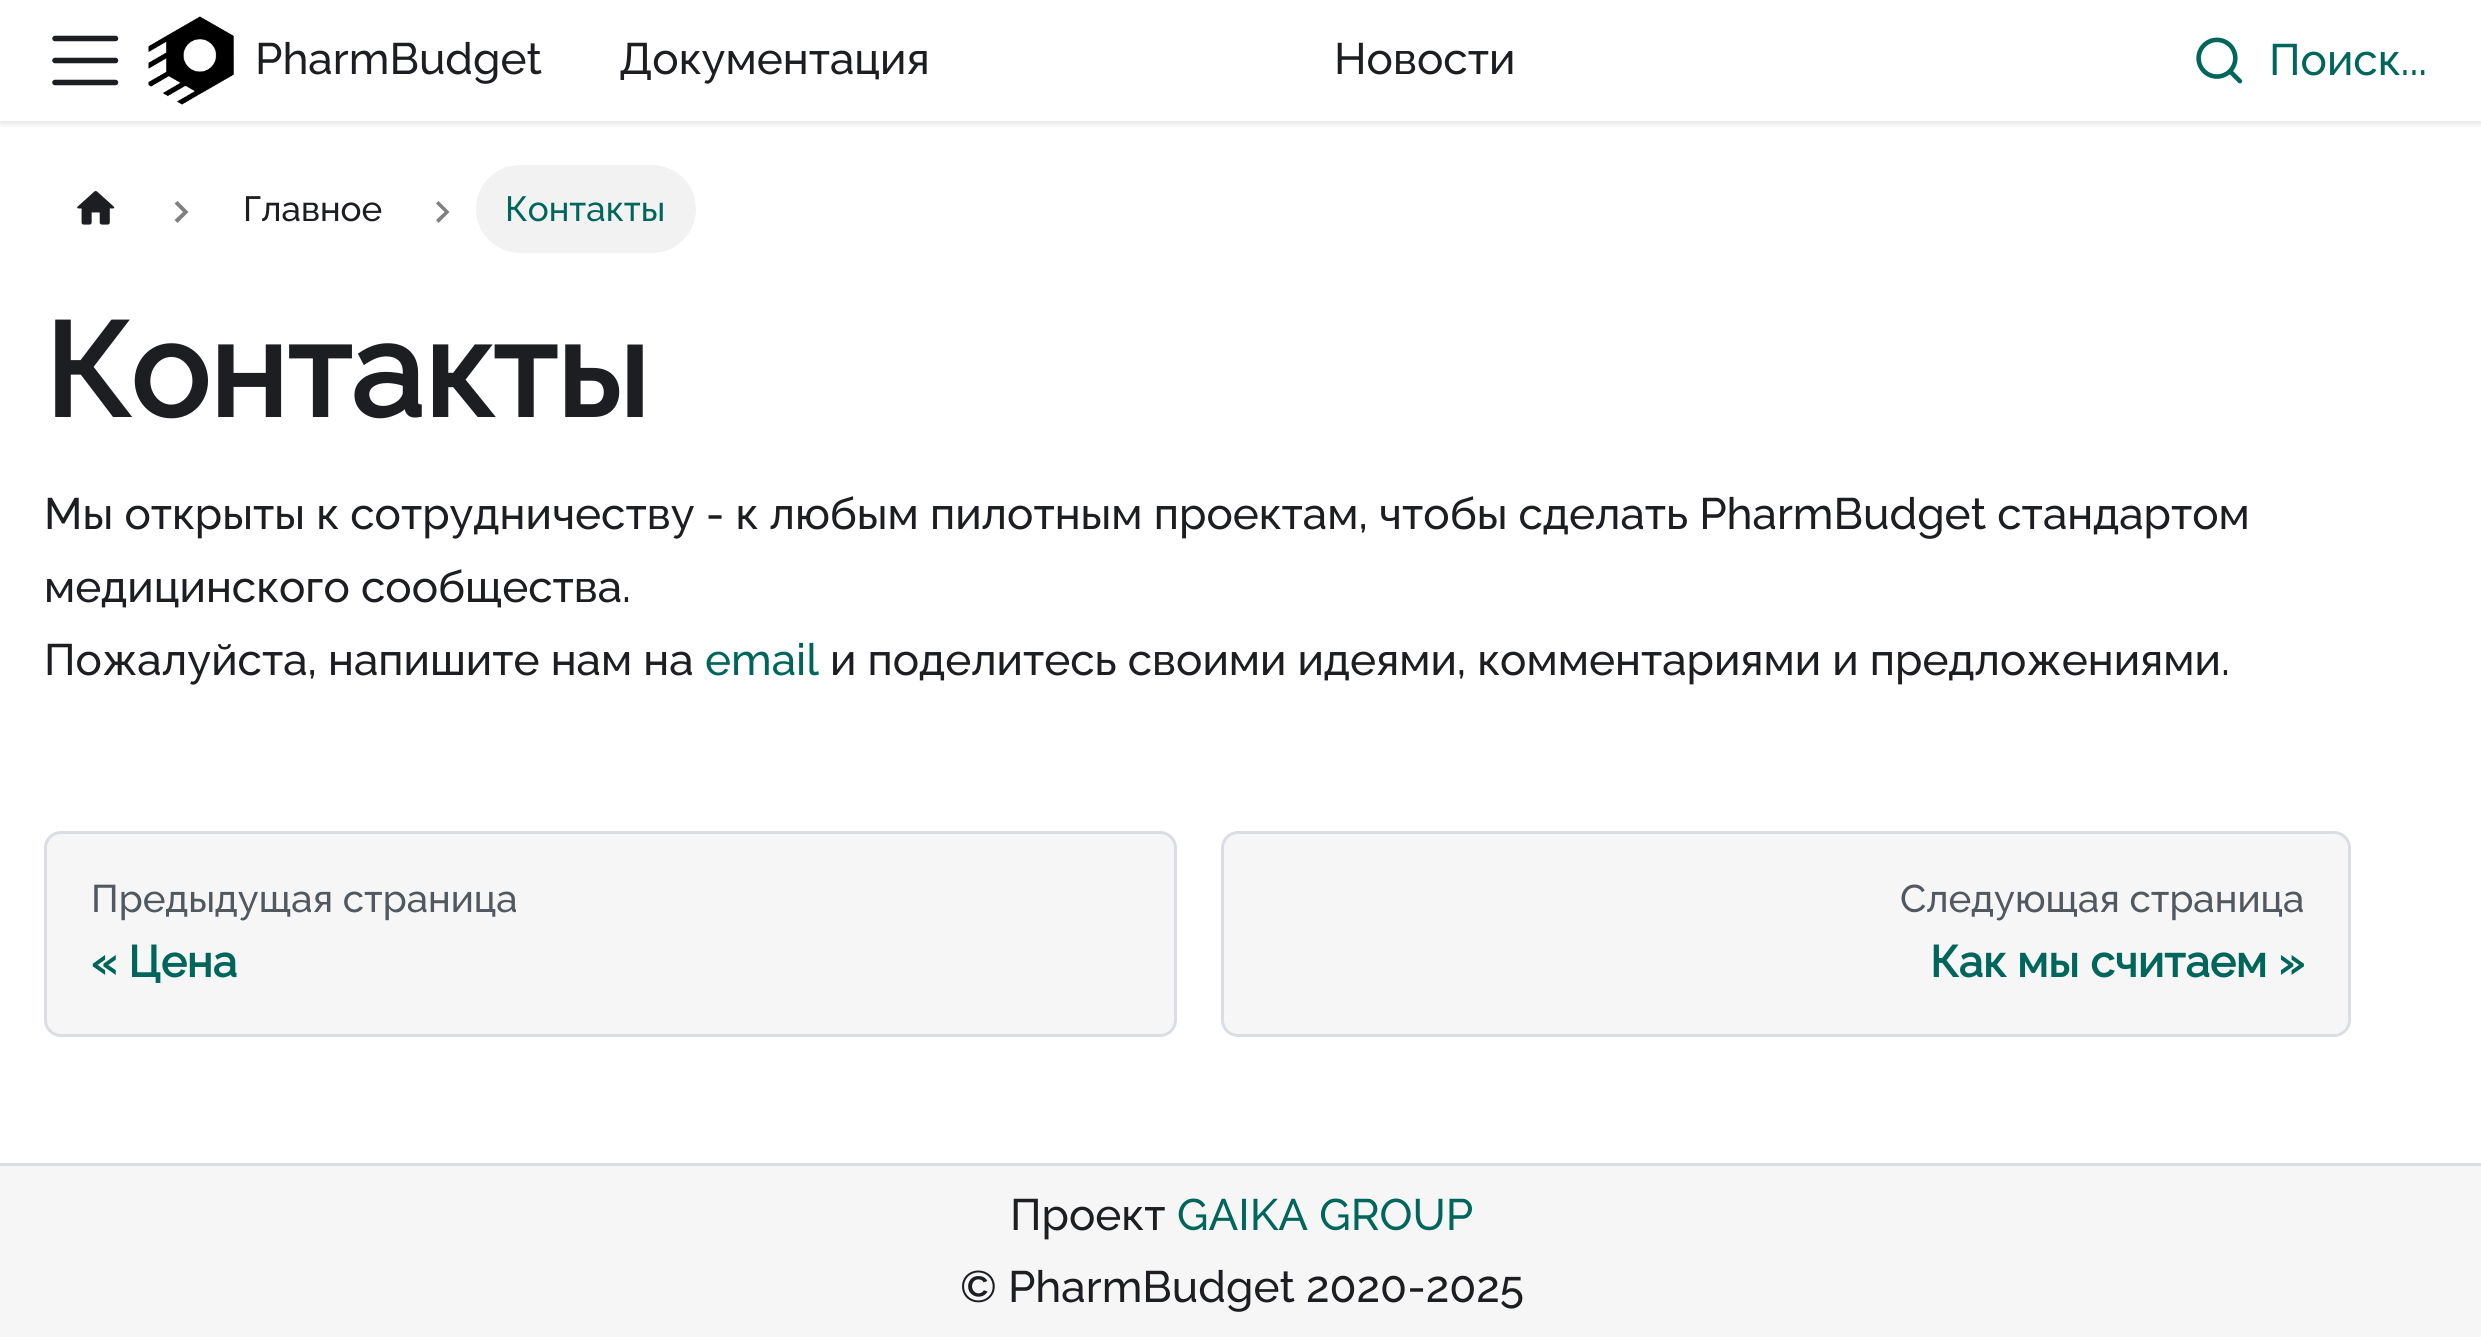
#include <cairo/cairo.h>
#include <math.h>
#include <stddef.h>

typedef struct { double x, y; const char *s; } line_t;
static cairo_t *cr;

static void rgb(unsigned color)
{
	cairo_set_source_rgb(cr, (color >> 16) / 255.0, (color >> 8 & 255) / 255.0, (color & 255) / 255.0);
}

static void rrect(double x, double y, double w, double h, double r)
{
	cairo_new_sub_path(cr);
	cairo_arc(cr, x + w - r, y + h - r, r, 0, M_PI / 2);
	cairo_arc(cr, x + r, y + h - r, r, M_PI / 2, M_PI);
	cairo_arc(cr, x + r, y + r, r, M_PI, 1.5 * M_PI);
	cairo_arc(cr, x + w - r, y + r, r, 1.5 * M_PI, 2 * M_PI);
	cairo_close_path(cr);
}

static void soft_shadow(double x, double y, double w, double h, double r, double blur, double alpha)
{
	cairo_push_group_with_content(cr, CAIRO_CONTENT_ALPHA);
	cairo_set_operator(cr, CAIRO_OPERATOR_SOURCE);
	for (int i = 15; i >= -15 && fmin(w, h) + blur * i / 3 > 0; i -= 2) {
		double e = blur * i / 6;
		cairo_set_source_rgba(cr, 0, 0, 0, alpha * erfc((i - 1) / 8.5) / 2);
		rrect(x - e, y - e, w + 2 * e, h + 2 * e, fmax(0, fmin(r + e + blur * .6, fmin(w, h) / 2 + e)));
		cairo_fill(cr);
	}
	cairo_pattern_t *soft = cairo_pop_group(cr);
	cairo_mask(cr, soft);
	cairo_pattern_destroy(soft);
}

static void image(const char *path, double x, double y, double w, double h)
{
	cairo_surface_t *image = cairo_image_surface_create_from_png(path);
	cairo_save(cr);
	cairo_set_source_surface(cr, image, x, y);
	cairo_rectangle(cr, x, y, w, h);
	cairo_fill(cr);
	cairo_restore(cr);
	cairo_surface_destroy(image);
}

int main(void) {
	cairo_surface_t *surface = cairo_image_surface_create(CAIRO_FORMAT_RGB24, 2481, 1337);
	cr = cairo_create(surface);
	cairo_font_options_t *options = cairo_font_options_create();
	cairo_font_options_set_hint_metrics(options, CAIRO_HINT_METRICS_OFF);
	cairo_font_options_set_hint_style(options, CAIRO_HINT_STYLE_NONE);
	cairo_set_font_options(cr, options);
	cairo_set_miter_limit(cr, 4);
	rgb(0xffffff);
	cairo_paint(cr);
	cairo_save(cr);
	cairo_rectangle(cr, 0, 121, 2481, 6);
	cairo_clip(cr);
	rgb(0x000000);
	soft_shadow(0, 3, 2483, 121, 0, 3, 0.1);
	cairo_restore(cr);
	cairo_new_path(cr);
	cairo_move_to(cr, 55, 38.5);
	cairo_line_to(cr, 115.5, 38.5);
	cairo_move_to(cr, 55, 60.5);
	cairo_line_to(cr, 115.5, 60.5);
	cairo_move_to(cr, 55, 82.5);
	cairo_line_to(cr, 115.5, 82.5);
	rgb(0x1c1e21);
	cairo_set_line_width(cr, 5.5);
	cairo_set_line_cap(cr, CAIRO_LINE_CAP_ROUND);
	cairo_stroke(cr);
	image("img/1.png", 148, 16, 86, 89);
	image("img/2.png", 2196, 37, 47, 47);
	image("img/3.png", 77, 191, 38, 34);
	rgb(0x808080);
	cairo_new_path(cr);
	cairo_move_to(cr, 177.5, 201);
	cairo_line_to(cr, 174.5, 203.5);
	cairo_line_to(cr, 183, 212);
	cairo_line_to(cr, 174.5, 220);
	cairo_line_to(cr, 177.5, 223);
	cairo_line_to(cr, 188.5, 212);
	cairo_close_path(cr);
	cairo_fill(cr);
	cairo_new_path(cr);
	cairo_move_to(cr, 438.5, 201);
	cairo_line_to(cr, 436, 203.5);
	cairo_line_to(cr, 444.5, 212);
	cairo_line_to(cr, 436, 220);
	cairo_line_to(cr, 438.5, 223);
	cairo_line_to(cr, 449.5, 212);
	cairo_close_path(cr);
	cairo_fill(cr);
	rgb(0xf2f2f2);
	rrect(476, 165, 220, 88, 44);
	cairo_fill(cr);
	rgb(0xf6f6f6);
	rrect(45.5, 832.5, 1130, 203, 15.5);
	cairo_fill_preserve(cr);
	rgb(0xdadde1);
	cairo_set_line_width(cr, 3);
	cairo_set_line_cap(cr, CAIRO_LINE_CAP_BUTT);
	cairo_stroke(cr);
	rgb(0xf6f6f6);
	rrect(1222.5, 832.5, 1127, 203, 15.5);
	cairo_fill_preserve(cr);
	rgb(0xdadde1);
	cairo_stroke(cr);
	rgb(0xf6f6f6);
	cairo_rectangle(cr, 0, 1166, 2481, 171);
	cairo_fill(cr);
	rgb(0xdadde1);
	cairo_rectangle(cr, 0, 1163, 2481, 3);
	cairo_fill(cr);
	cairo_select_font_face(cr, "Raleway Thin", CAIRO_FONT_SLANT_NORMAL, CAIRO_FONT_WEIGHT_NORMAL);
	cairo_set_font_size(cr, 44);
	rgb(0x1c1e21);
	{
		static const line_t items[] = {
			{255, 74, "PharmBudget"},
			{619, 74, "Документация"},
			{1334, 74, "Новости"},
		};
		for (size_t i = 0; i < sizeof items / sizeof *items; i++) {
			cairo_move_to(cr, items[i].x, items[i].y);
			cairo_show_text(cr, items[i].s);
		}
	}
	rgb(0x00665c);
	cairo_move_to(cr, 2269, 75);
	cairo_show_text(cr, "Поиск...");
	cairo_set_font_size(cr, 35);
	rgb(0x1c1e21);
	cairo_move_to(cr, 243, 221);
	cairo_show_text(cr, "Главное");
	rgb(0x00665c);
	cairo_move_to(cr, 505, 221);
	cairo_show_text(cr, "Контакты");
	cairo_select_font_face(cr, "Raleway", CAIRO_FONT_SLANT_NORMAL, CAIRO_FONT_WEIGHT_BOLD);
	cairo_set_font_size(cr, 132);
	rgb(0x1c1e21);
	cairo_move_to(cr, 44, 417);
	cairo_show_text(cr, "Контакты");
	cairo_select_font_face(cr, "Raleway Thin", CAIRO_FONT_SLANT_NORMAL, CAIRO_FONT_WEIGHT_NORMAL);
	cairo_set_font_size(cr, 44);
	{
		static const line_t items[] = {
			{44, 529, "Мы открыты к сотрудничеству - к любым пилотным проектам, чтобы сделать PharmBudget стандартом"},
			{44, 602, "медицинского сообщества."},
			{44, 675, "Пожалуйста, напишите нам на"},
		};
		for (size_t i = 0; i < sizeof items / sizeof *items; i++) {
			cairo_move_to(cr, items[i].x, items[i].y);
			cairo_show_text(cr, items[i].s);
		}
	}
	rgb(0x00665c);
	cairo_move_to(cr, 705, 675);
	cairo_show_text(cr, "email");
	rgb(0x1c1e21);
	cairo_move_to(cr, 830, 675);
	cairo_show_text(cr, "и поделитесь своими идеями, комментариями и предложениями.");
	cairo_set_font_size(cr, 38.5);
	rgb(0x525860);
	cairo_move_to(cr, 91, 912);
	cairo_show_text(cr, "Предыдущая страница");
	cairo_select_font_face(cr, "Raleway", CAIRO_FONT_SLANT_NORMAL, CAIRO_FONT_WEIGHT_BOLD);
	cairo_set_font_size(cr, 44);
	rgb(0x00665c);
	cairo_move_to(cr, 91, 977);
	cairo_show_text(cr, "« Цена");
	cairo_select_font_face(cr, "Raleway Thin", CAIRO_FONT_SLANT_NORMAL, CAIRO_FONT_WEIGHT_NORMAL);
	cairo_set_font_size(cr, 38.5);
	rgb(0x525860);
	cairo_move_to(cr, 1900, 912);
	cairo_show_text(cr, "Следующая страница");
	cairo_select_font_face(cr, "Raleway", CAIRO_FONT_SLANT_NORMAL, CAIRO_FONT_WEIGHT_BOLD);
	cairo_set_font_size(cr, 44);
	rgb(0x00665c);
	cairo_move_to(cr, 1930, 977);
	cairo_show_text(cr, "Как мы считаем »");
	cairo_select_font_face(cr, "Raleway Thin", CAIRO_FONT_SLANT_NORMAL, CAIRO_FONT_WEIGHT_NORMAL);
	rgb(0x1c1e21);
	cairo_move_to(cr, 1010, 1230);
	cairo_show_text(cr, "Проект");
	rgb(0x00665c);
	cairo_move_to(cr, 1177, 1230);
	cairo_show_text(cr, "GAIKA GROUP");
	rgb(0x1c1e21);
	cairo_move_to(cr, 960, 1302);
	cairo_show_text(cr, "© PharmBudget 2020-2025");
	cairo_surface_write_to_png(surface, "page.png");
	cairo_font_options_destroy(options);
	cairo_destroy(cr);
	cairo_surface_destroy(surface);
	return 0;
}
